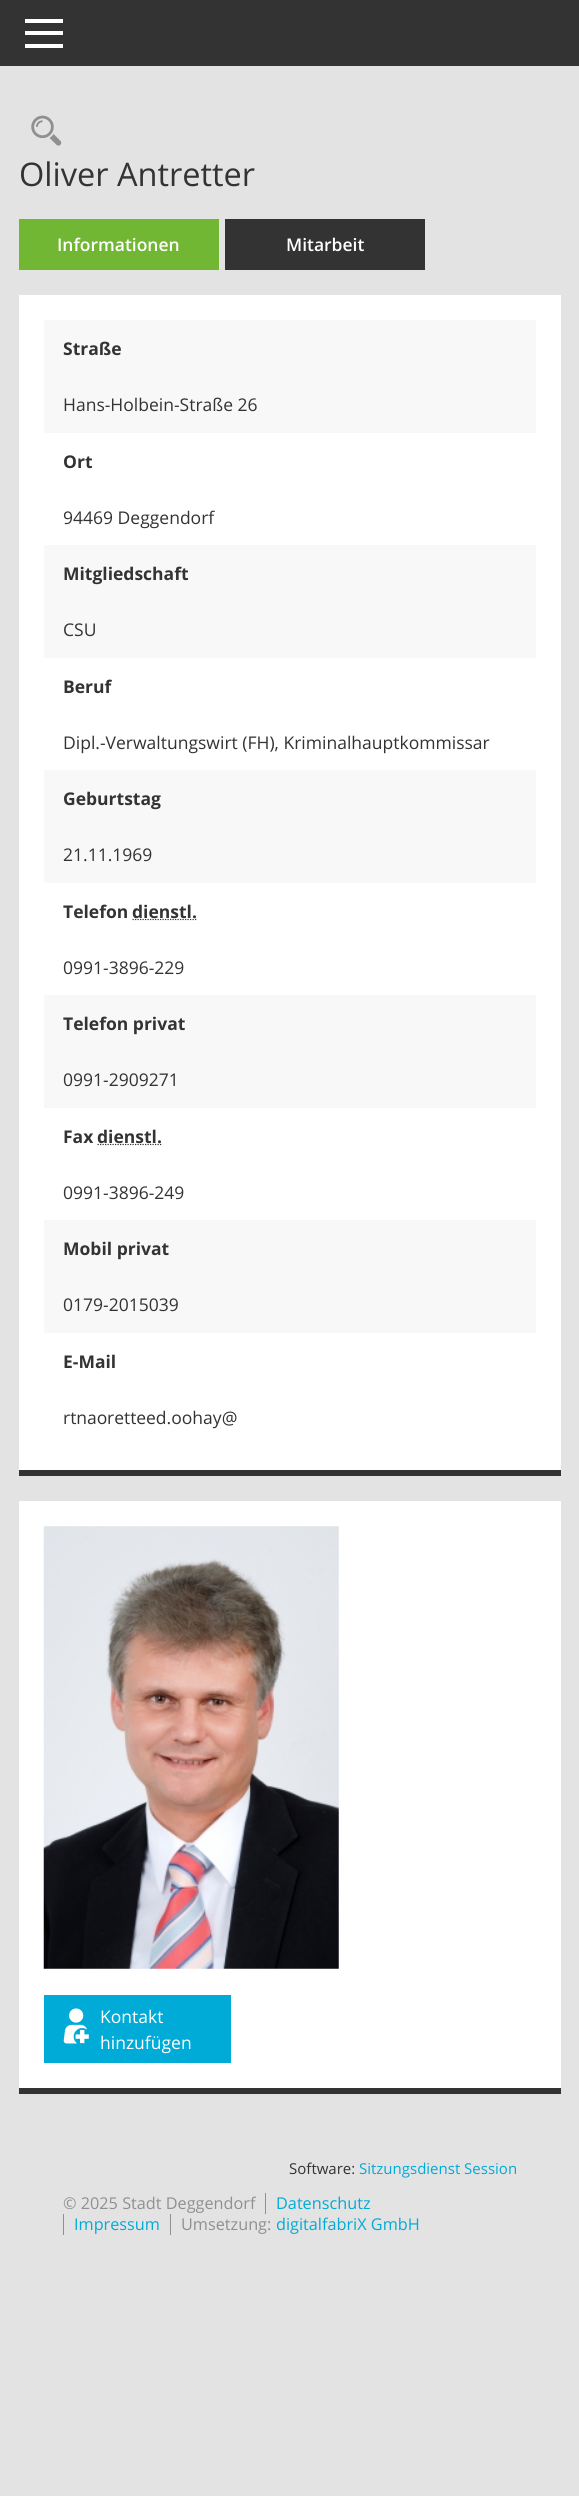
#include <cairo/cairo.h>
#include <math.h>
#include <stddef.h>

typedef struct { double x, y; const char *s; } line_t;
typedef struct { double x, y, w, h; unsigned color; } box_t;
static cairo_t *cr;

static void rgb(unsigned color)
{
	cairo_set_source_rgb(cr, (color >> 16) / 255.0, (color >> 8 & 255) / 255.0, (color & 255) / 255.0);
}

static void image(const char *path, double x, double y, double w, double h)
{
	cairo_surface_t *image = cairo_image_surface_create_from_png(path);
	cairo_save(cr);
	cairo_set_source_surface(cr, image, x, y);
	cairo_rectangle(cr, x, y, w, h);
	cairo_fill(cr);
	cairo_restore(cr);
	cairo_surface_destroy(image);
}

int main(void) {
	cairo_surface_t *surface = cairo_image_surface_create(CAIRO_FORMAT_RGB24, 579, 2496);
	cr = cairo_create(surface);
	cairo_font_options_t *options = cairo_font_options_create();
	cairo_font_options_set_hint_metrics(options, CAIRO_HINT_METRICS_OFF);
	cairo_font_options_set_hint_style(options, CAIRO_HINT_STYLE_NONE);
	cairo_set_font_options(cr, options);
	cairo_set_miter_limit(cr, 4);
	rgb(0xe3e3e3);
	cairo_paint(cr);
	{
		static const box_t items[] = {
			{0, 0, 579, 66, 0x333333},
			{25, 19, 38, 4, 0xffffff},
			{25, 31, 38, 4, 0xffffff},
			{25, 44, 38, 4, 0xffffff},
		};
		for (size_t i = 0; i < sizeof items / sizeof *items; i++) {
			rgb(items[i].color);
			cairo_rectangle(cr, items[i].x, items[i].y, items[i].w, items[i].h);
			cairo_fill(cr);
		}
	}
	image("img/1.png", 31, 115, 31, 31);
	{
		static const box_t items[] = {
			{219, 269, 342, 1, 0xdee2e6},
			{19, 219, 200, 51, 0x71b733},
			{225, 219, 200, 51, 0x333333},
			{19, 295, 542, 1175, 0xffffff},
			{19, 1470, 542, 6, 0x333333},
			{44, 320, 492, 113, 0xf8f8f8},
			{44, 545, 492, 113, 0xf8f8f8},
			{44, 770, 492, 113, 0xf8f8f8},
		};
		for (size_t i = 0; i < sizeof items / sizeof *items; i++) {
			rgb(items[i].color);
			cairo_rectangle(cr, items[i].x, items[i].y, items[i].w, items[i].h);
			cairo_fill(cr);
		}
	}
	cairo_new_path(cr);
	cairo_move_to(cr, 132.5, 919.5);
	cairo_line_to(cr, 197, 919.5);
	rgb(0x333333);
	cairo_set_line_width(cr, 1.2);
	cairo_set_dash(cr, (double[]){1.25, 1.25}, 2, 0);
	cairo_stroke(cr);
	rgb(0xf8f8f8);
	cairo_rectangle(cr, 44, 995, 492, 113);
	cairo_fill(cr);
	cairo_new_path(cr);
	cairo_move_to(cr, 97.5, 1144.5);
	cairo_line_to(cr, 162, 1144.5);
	rgb(0x333333);
	cairo_stroke(cr);
	{
		static const box_t items[] = {
			{44, 1220, 492, 113, 0xf8f8f8},
			{19, 1501, 542, 587, 0xffffff},
			{19, 2088, 542, 6, 0x333333},
		};
		for (size_t i = 0; i < sizeof items / sizeof *items; i++) {
			rgb(items[i].color);
			cairo_rectangle(cr, items[i].x, items[i].y, items[i].w, items[i].h);
			cairo_fill(cr);
		}
	}
	image("img/2.png", 43, 1526, 296, 443);
	rgb(0x00abd7);
	cairo_rectangle(cr, 44, 1995, 187, 68);
	cairo_fill(cr);
	image("img/3.png", 63, 2008, 26, 36);
	{
		static const box_t items[] = {
			{265, 2193, 1, 21, 0x909090},
			{63, 2214, 1, 21, 0x909090},
			{170, 2214, 1, 21, 0x909090},
		};
		for (size_t i = 0; i < sizeof items / sizeof *items; i++) {
			rgb(items[i].color);
			cairo_rectangle(cr, items[i].x, items[i].y, items[i].w, items[i].h);
			cairo_fill(cr);
		}
	}
	cairo_select_font_face(cr, "Open Sans", CAIRO_FONT_SLANT_NORMAL, CAIRO_FONT_WEIGHT_NORMAL);
	cairo_set_font_size(cr, 32.5);
	rgb(0x333333);
	cairo_move_to(cr, 19, 186);
	cairo_show_text(cr, "Oliver Antretter");
	cairo_select_font_face(cr, "Open Sans SemiBold", CAIRO_FONT_SLANT_NORMAL, CAIRO_FONT_WEIGHT_NORMAL);
	cairo_set_font_size(cr, 17.5);
	rgb(0xffffff);
	cairo_move_to(cr, 57, 251);
	cairo_show_text(cr, "Informationen");
	cairo_move_to(cr, 286, 251);
	cairo_show_text(cr, "Mitarbeit");
	cairo_select_font_face(cr, "Open Sans", CAIRO_FONT_SLANT_NORMAL, CAIRO_FONT_WEIGHT_BOLD);
	rgb(0x333333);
	cairo_move_to(cr, 63, 355);
	cairo_show_text(cr, "Straße");
	cairo_select_font_face(cr, "Open Sans", CAIRO_FONT_SLANT_NORMAL, CAIRO_FONT_WEIGHT_NORMAL);
	cairo_move_to(cr, 63, 411);
	cairo_show_text(cr, "Hans-Holbein-Straße 26");
	cairo_select_font_face(cr, "Open Sans", CAIRO_FONT_SLANT_NORMAL, CAIRO_FONT_WEIGHT_BOLD);
	cairo_move_to(cr, 63, 468);
	cairo_show_text(cr, "Ort");
	cairo_select_font_face(cr, "Open Sans", CAIRO_FONT_SLANT_NORMAL, CAIRO_FONT_WEIGHT_NORMAL);
	cairo_move_to(cr, 63, 524);
	cairo_show_text(cr, "94469 Deggendorf");
	cairo_select_font_face(cr, "Open Sans", CAIRO_FONT_SLANT_NORMAL, CAIRO_FONT_WEIGHT_BOLD);
	cairo_move_to(cr, 63, 580);
	cairo_show_text(cr, "Mitgliedschaft");
	cairo_select_font_face(cr, "Open Sans", CAIRO_FONT_SLANT_NORMAL, CAIRO_FONT_WEIGHT_NORMAL);
	cairo_move_to(cr, 63, 636);
	cairo_show_text(cr, "CSU");
	cairo_select_font_face(cr, "Open Sans", CAIRO_FONT_SLANT_NORMAL, CAIRO_FONT_WEIGHT_BOLD);
	cairo_move_to(cr, 63, 693);
	cairo_show_text(cr, "Beruf");
	cairo_select_font_face(cr, "Open Sans", CAIRO_FONT_SLANT_NORMAL, CAIRO_FONT_WEIGHT_NORMAL);
	cairo_move_to(cr, 63, 749);
	cairo_show_text(cr, "Dipl.-Verwaltungswirt (FH), Kriminalhauptkommissar");
	cairo_select_font_face(cr, "Open Sans", CAIRO_FONT_SLANT_NORMAL, CAIRO_FONT_WEIGHT_BOLD);
	cairo_move_to(cr, 63, 805);
	cairo_show_text(cr, "Geburtstag");
	cairo_select_font_face(cr, "Open Sans", CAIRO_FONT_SLANT_NORMAL, CAIRO_FONT_WEIGHT_NORMAL);
	cairo_move_to(cr, 63, 861);
	cairo_show_text(cr, "21.11.1969");
	cairo_select_font_face(cr, "Open Sans", CAIRO_FONT_SLANT_NORMAL, CAIRO_FONT_WEIGHT_BOLD);
	cairo_move_to(cr, 63, 918);
	cairo_show_text(cr, "Telefon");
	cairo_move_to(cr, 132, 918);
	cairo_show_text(cr, "dienstl.");
	cairo_select_font_face(cr, "Open Sans", CAIRO_FONT_SLANT_NORMAL, CAIRO_FONT_WEIGHT_NORMAL);
	cairo_move_to(cr, 63, 974);
	cairo_show_text(cr, "0991-3896-229");
	cairo_select_font_face(cr, "Open Sans", CAIRO_FONT_SLANT_NORMAL, CAIRO_FONT_WEIGHT_BOLD);
	cairo_move_to(cr, 63, 1030);
	cairo_show_text(cr, "Telefon privat");
	cairo_select_font_face(cr, "Open Sans", CAIRO_FONT_SLANT_NORMAL, CAIRO_FONT_WEIGHT_NORMAL);
	cairo_move_to(cr, 63, 1086);
	cairo_show_text(cr, "0991-2909271");
	cairo_select_font_face(cr, "Open Sans", CAIRO_FONT_SLANT_NORMAL, CAIRO_FONT_WEIGHT_BOLD);
	cairo_move_to(cr, 63, 1143);
	cairo_show_text(cr, "Fax");
	cairo_move_to(cr, 97, 1143);
	cairo_show_text(cr, "dienstl.");
	cairo_select_font_face(cr, "Open Sans", CAIRO_FONT_SLANT_NORMAL, CAIRO_FONT_WEIGHT_NORMAL);
	cairo_move_to(cr, 63, 1199);
	cairo_show_text(cr, "0991-3896-249");
	cairo_select_font_face(cr, "Open Sans", CAIRO_FONT_SLANT_NORMAL, CAIRO_FONT_WEIGHT_BOLD);
	cairo_move_to(cr, 63, 1255);
	cairo_show_text(cr, "Mobil privat");
	cairo_select_font_face(cr, "Open Sans", CAIRO_FONT_SLANT_NORMAL, CAIRO_FONT_WEIGHT_NORMAL);
	cairo_move_to(cr, 63, 1311);
	cairo_show_text(cr, "0179-2015039");
	cairo_select_font_face(cr, "Open Sans", CAIRO_FONT_SLANT_NORMAL, CAIRO_FONT_WEIGHT_BOLD);
	cairo_move_to(cr, 63, 1368);
	cairo_show_text(cr, "E-Mail");
	cairo_select_font_face(cr, "Open Sans", CAIRO_FONT_SLANT_NORMAL, CAIRO_FONT_WEIGHT_NORMAL);
	{
		static const line_t items[] = {
			{63, 1424, "rtnao"},
			{107, 1424, "rette"},
			{146, 1424, "ed.oohay@"},
		};
		for (size_t i = 0; i < sizeof items / sizeof *items; i++) {
			cairo_move_to(cr, items[i].x, items[i].y);
			cairo_show_text(cr, items[i].s);
		}
	}
	rgb(0xffffff);
	cairo_move_to(cr, 100, 2023);
	cairo_show_text(cr, "Kontakt");
	cairo_move_to(cr, 100, 2049);
	cairo_show_text(cr, "hinzufügen");
	cairo_set_font_size(cr, 15);
	rgb(0x333333);
	cairo_move_to(cr, 289, 2174);
	cairo_show_text(cr, "Software:");
	rgb(0x00abd7);
	cairo_move_to(cr, 359, 2174);
	cairo_show_text(cr, "Sitzungsdienst Session");
	cairo_set_font_size(cr, 16.25);
	rgb(0x909090);
	cairo_move_to(cr, 63, 2209);
	cairo_show_text(cr, "© 2025 Stadt Deggendorf");
	rgb(0x00abd7);
	cairo_move_to(cr, 276, 2209);
	cairo_show_text(cr, "Datenschutz");
	cairo_move_to(cr, 74, 2230);
	cairo_show_text(cr, "Impressum");
	rgb(0x909090);
	cairo_move_to(cr, 181, 2230);
	cairo_show_text(cr, "Umsetzung:");
	rgb(0x00abd7);
	cairo_move_to(cr, 276, 2230);
	cairo_show_text(cr, "digitalfabriX GmbH");
	cairo_surface_write_to_png(surface, "page.png");
	cairo_font_options_destroy(options);
	cairo_destroy(cr);
	cairo_surface_destroy(surface);
	return 0;
}
